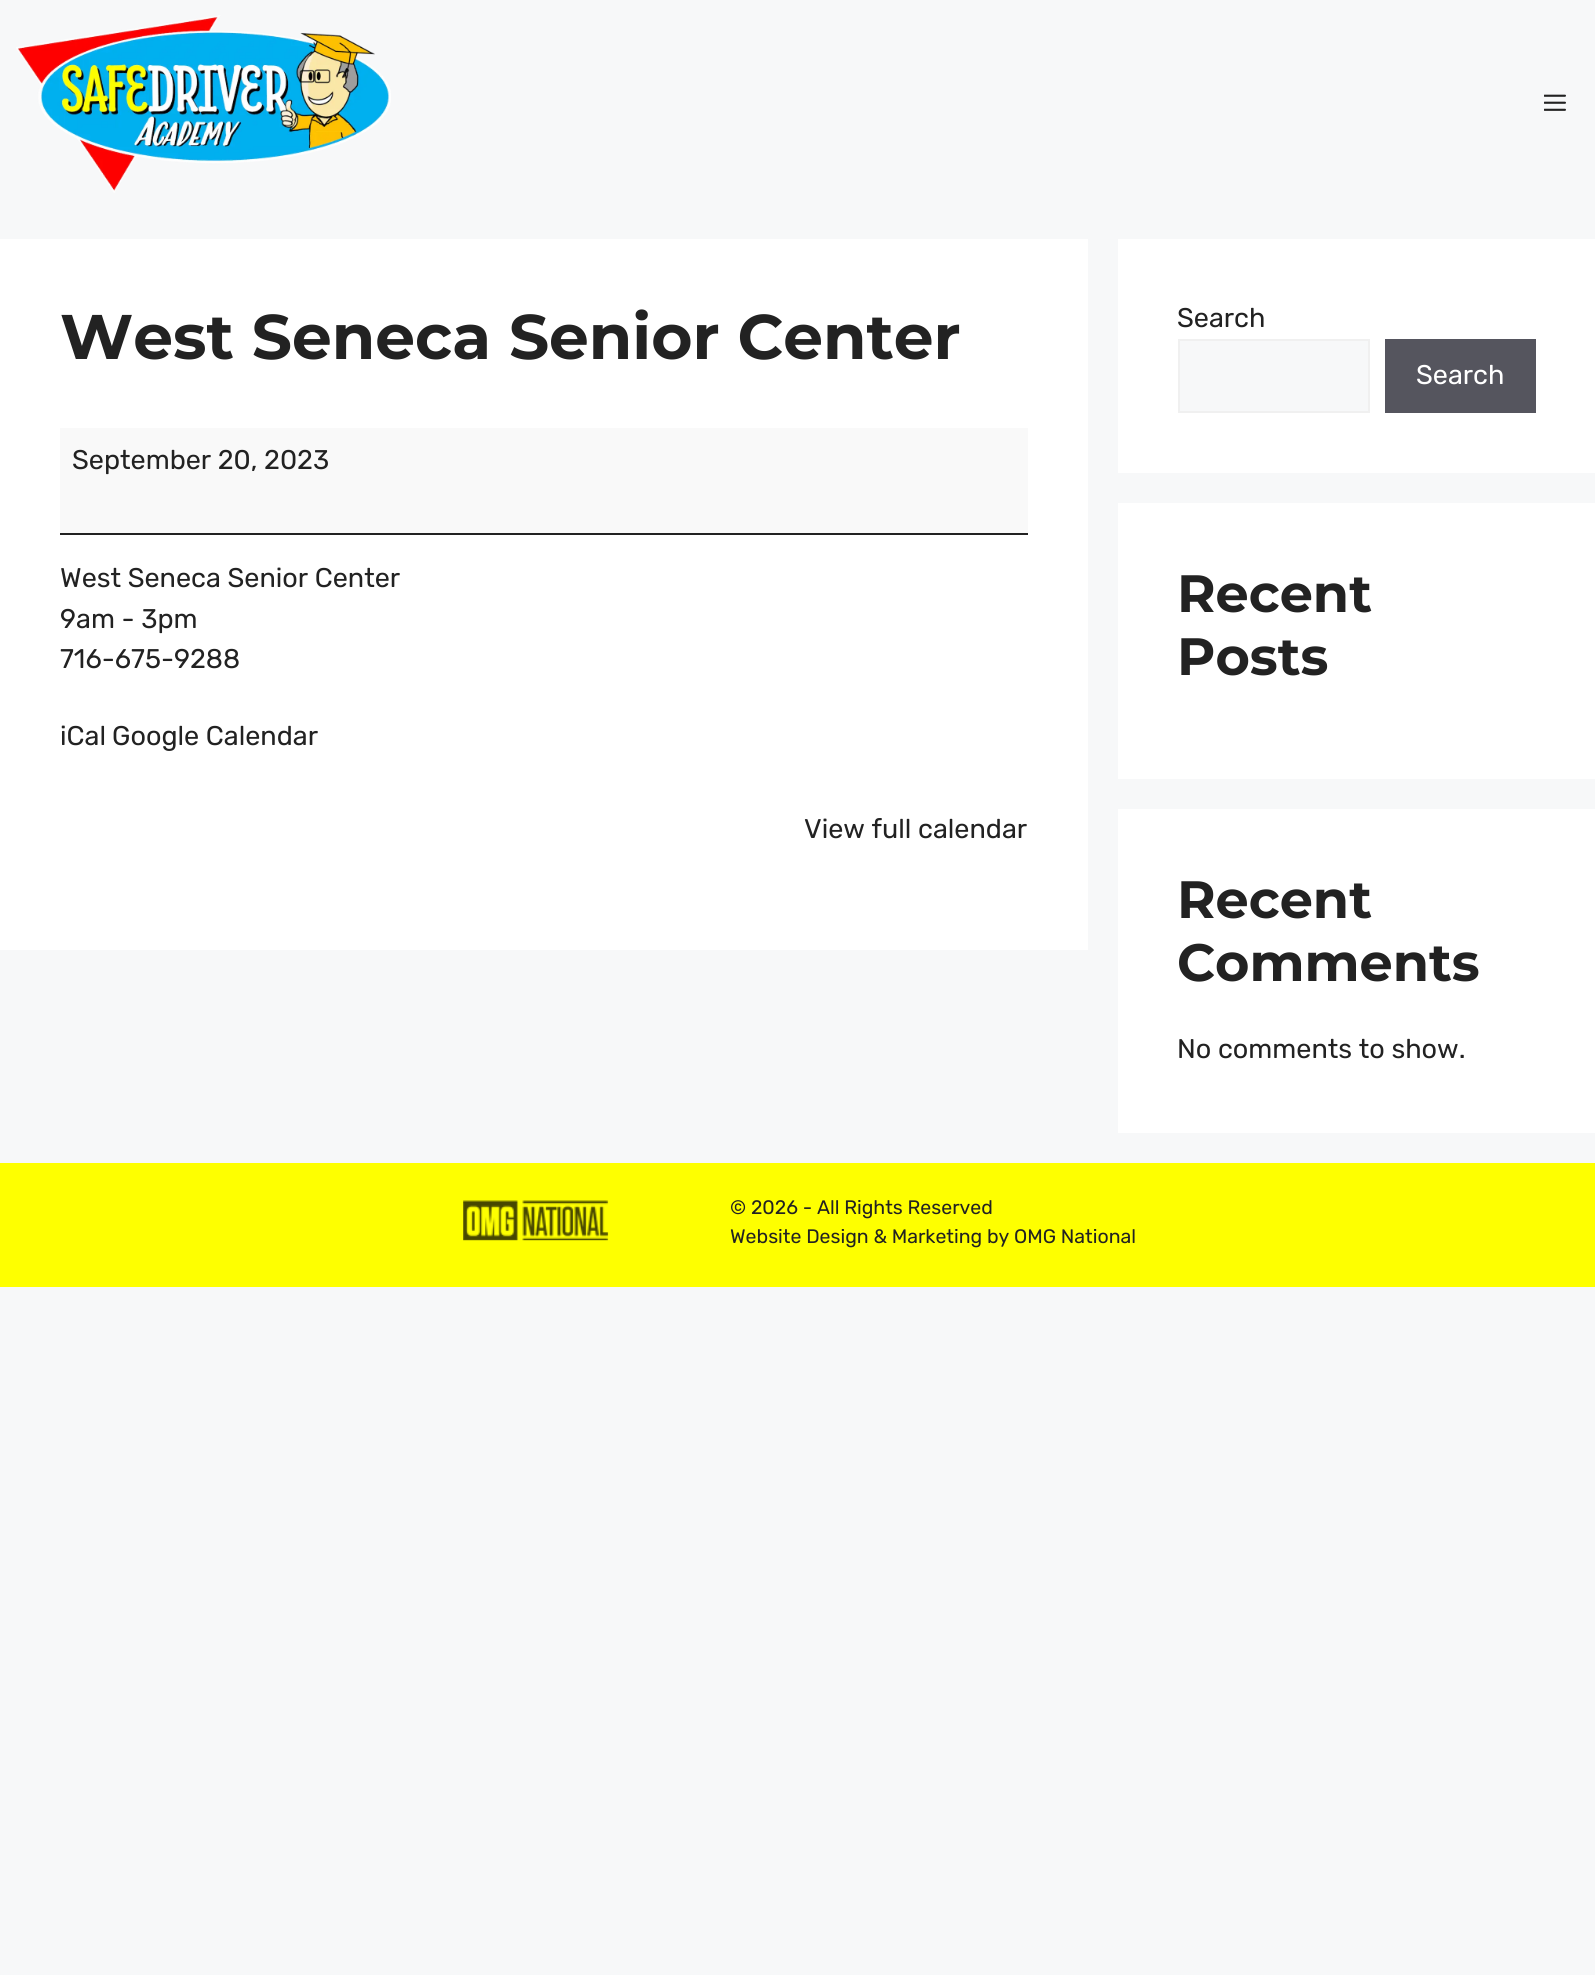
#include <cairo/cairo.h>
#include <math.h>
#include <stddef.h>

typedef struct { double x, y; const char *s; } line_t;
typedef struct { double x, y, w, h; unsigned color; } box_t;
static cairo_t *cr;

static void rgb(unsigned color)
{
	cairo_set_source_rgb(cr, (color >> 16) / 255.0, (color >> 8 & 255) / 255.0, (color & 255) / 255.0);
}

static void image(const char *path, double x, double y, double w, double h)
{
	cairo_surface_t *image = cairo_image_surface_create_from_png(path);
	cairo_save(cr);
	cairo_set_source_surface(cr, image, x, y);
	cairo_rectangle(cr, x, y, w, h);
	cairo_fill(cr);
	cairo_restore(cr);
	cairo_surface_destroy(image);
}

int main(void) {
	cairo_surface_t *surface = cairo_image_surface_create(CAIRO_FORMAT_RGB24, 1595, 1975);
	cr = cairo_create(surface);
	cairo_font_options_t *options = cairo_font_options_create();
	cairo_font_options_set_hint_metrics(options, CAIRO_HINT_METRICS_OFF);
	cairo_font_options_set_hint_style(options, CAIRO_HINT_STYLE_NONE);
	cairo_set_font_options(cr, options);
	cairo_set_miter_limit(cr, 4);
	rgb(0xf7f8f9);
	cairo_paint(cr);
	image("img/1.png", 16, 15, 375, 178);
	image("img/2.png", 1544, 94, 22, 17);
	{
		static const box_t items[] = {
			{0, 239, 1088, 711, 0xffffff},
			{60, 428, 968, 105, 0xf9f9f9},
			{60, 533, 968, 2, 0x222222},
			{1118, 239, 477, 234, 0xffffff},
		};
		for (size_t i = 0; i < sizeof items / sizeof *items; i++) {
			rgb(items[i].color);
			cairo_rectangle(cr, items[i].x, items[i].y, items[i].w, items[i].h);
			cairo_fill(cr);
		}
	}
	rgb(0xf7f8f9);
	cairo_rectangle(cr, 1179, 340, 190, 72);
	cairo_fill_preserve(cr);
	rgb(0xf0f0f0);
	cairo_stroke(cr);
	{
		static const box_t items[] = {
			{1385, 339, 151, 74, 0x55555e},
			{1118, 503, 477, 276, 0xffffff},
			{1118, 809, 477, 324, 0xffffff},
			{0, 1163, 1595, 124, 0xfeff00},
		};
		for (size_t i = 0; i < sizeof items / sizeof *items; i++) {
			rgb(items[i].color);
			cairo_rectangle(cr, items[i].x, items[i].y, items[i].w, items[i].h);
			cairo_fill(cr);
		}
	}
	image("img/3.png", 463, 1200, 146, 41);
	cairo_select_font_face(cr, "Montserrat", CAIRO_FONT_SLANT_NORMAL, CAIRO_FONT_WEIGHT_BOLD);
	cairo_set_font_size(cr, 63);
	rgb(0x222222);
	cairo_move_to(cr, 60, 359);
	cairo_show_text(cr, "West Seneca Senior Center");
	cairo_select_font_face(cr, "Rubik", CAIRO_FONT_SLANT_NORMAL, CAIRO_FONT_WEIGHT_NORMAL);
	cairo_set_font_size(cr, 27);
	{
		static const line_t items[] = {
			{72, 469, "September 20, 2023"},
			{60, 587, "West Seneca Senior Center"},
			{60, 628, "9am - 3pm"},
			{60, 668, "716-675-9288"},
			{60, 745, "iCal"},
			{112, 745, "Google Calendar"},
			{804, 838, "View full calendar"},
			{1177, 327, "Search"},
		};
		for (size_t i = 0; i < sizeof items / sizeof *items; i++) {
			cairo_move_to(cr, items[i].x, items[i].y);
			cairo_show_text(cr, items[i].s);
		}
	}
	rgb(0xffffff);
	cairo_move_to(cr, 1416, 384);
	cairo_show_text(cr, "Search");
	cairo_select_font_face(cr, "Montserrat", CAIRO_FONT_SLANT_NORMAL, CAIRO_FONT_WEIGHT_BOLD);
	cairo_set_font_size(cr, 52.5);
	rgb(0x222222);
	{
		static const line_t items[] = {
			{1177, 612, "Recent"},
			{1177, 675, "Posts"},
			{1177, 918, "Recent"},
			{1177, 981, "Comments"},
		};
		for (size_t i = 0; i < sizeof items / sizeof *items; i++) {
			cairo_move_to(cr, items[i].x, items[i].y);
			cairo_show_text(cr, items[i].s);
		}
	}
	cairo_select_font_face(cr, "Rubik", CAIRO_FONT_SLANT_NORMAL, CAIRO_FONT_WEIGHT_NORMAL);
	cairo_set_font_size(cr, 27);
	cairo_move_to(cr, 1177, 1058);
	cairo_show_text(cr, "No comments to show.");
	cairo_set_font_size(cr, 19.5);
	cairo_move_to(cr, 730, 1214);
	cairo_show_text(cr, "© 2026 - All Rights Reserved");
	cairo_move_to(cr, 730, 1243);
	cairo_show_text(cr, "Website Design & Marketing by OMG National");
	cairo_surface_write_to_png(surface, "page.png");
	cairo_font_options_destroy(options);
	cairo_destroy(cr);
	cairo_surface_destroy(surface);
	return 0;
}
